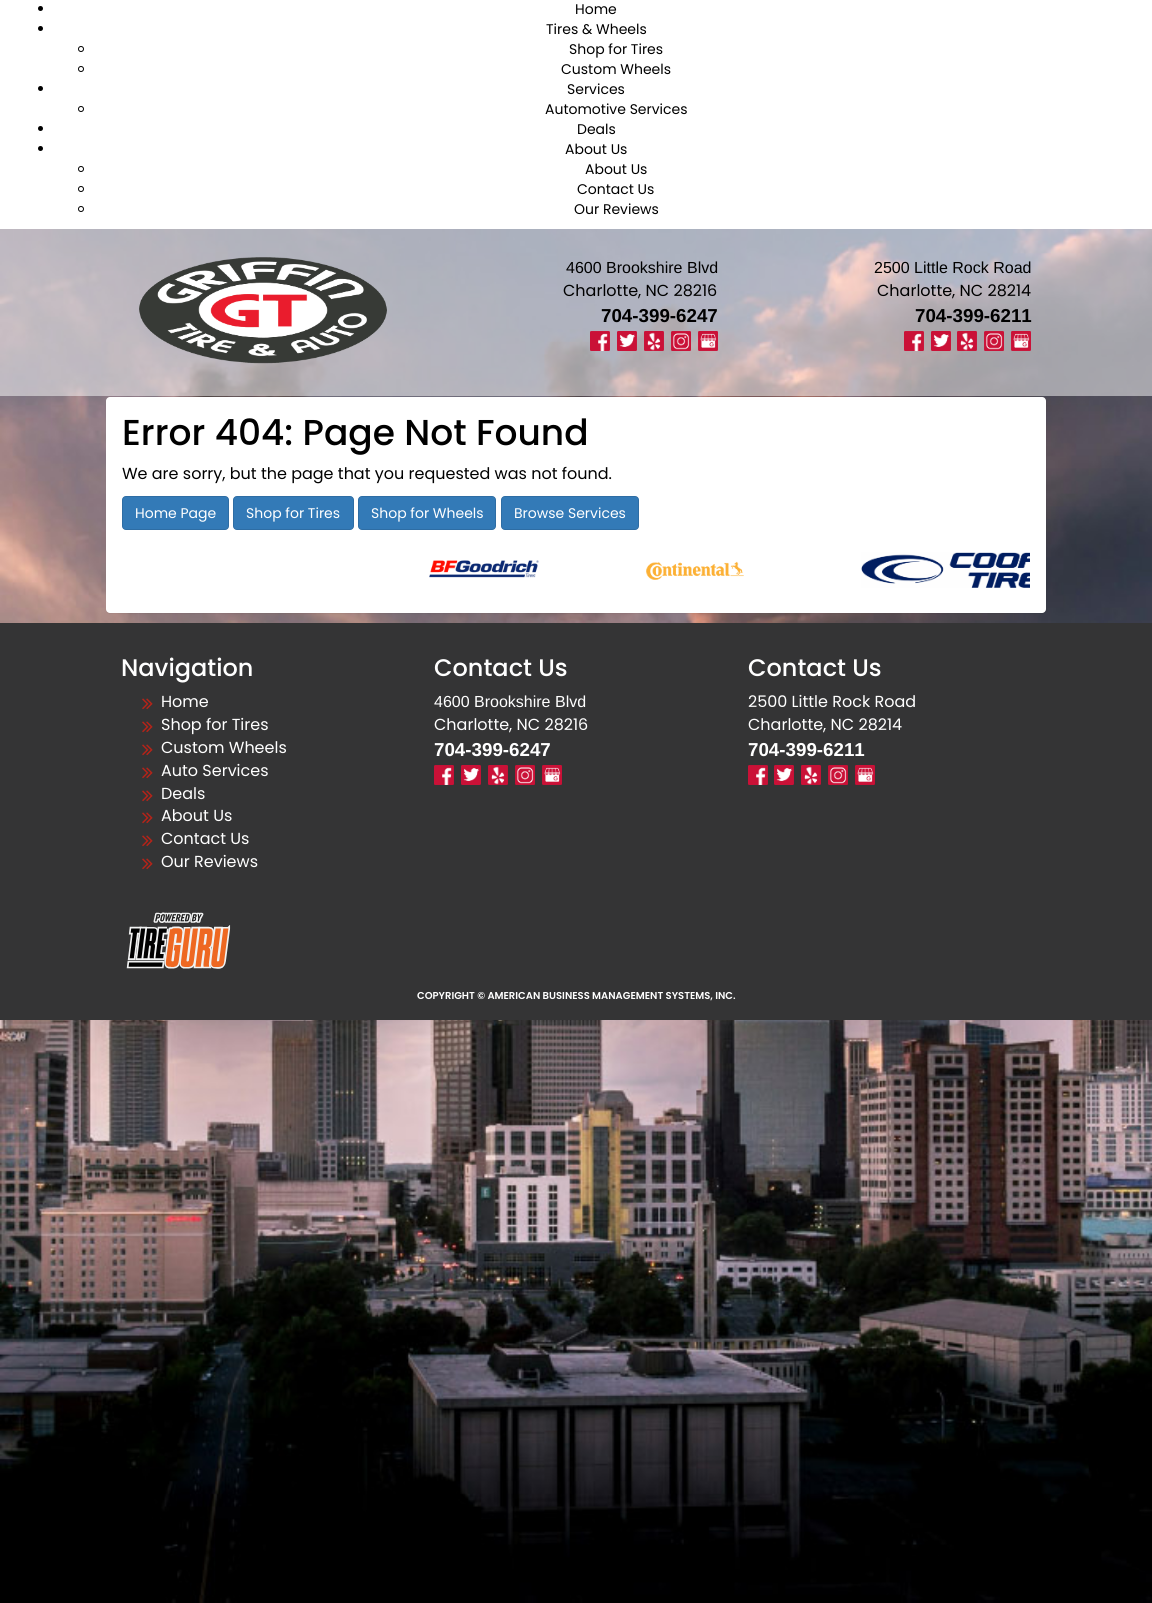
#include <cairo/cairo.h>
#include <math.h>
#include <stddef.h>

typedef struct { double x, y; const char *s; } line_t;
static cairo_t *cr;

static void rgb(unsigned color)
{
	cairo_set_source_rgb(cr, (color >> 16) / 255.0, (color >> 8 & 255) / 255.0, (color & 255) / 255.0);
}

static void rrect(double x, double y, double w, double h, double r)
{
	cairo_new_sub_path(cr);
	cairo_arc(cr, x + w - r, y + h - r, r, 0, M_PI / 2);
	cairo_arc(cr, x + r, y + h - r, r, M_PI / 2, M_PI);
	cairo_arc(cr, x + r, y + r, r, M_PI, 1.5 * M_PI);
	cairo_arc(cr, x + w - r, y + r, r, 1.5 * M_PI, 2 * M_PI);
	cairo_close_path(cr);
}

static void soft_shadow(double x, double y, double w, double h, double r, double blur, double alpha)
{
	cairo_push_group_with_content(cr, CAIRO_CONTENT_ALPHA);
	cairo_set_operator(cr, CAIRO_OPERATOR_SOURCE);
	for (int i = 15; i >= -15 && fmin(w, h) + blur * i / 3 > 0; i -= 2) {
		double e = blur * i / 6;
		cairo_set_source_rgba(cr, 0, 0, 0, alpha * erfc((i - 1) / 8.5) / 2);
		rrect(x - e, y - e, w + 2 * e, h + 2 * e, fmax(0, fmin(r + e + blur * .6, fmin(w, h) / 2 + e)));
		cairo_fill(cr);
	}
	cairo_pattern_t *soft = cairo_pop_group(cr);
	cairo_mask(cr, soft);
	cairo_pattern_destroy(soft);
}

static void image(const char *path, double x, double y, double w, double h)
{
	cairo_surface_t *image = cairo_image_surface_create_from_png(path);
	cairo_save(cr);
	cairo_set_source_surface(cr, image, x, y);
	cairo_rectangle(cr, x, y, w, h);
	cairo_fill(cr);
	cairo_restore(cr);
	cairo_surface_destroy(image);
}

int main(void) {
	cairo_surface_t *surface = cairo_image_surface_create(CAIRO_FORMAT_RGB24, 1152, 1603);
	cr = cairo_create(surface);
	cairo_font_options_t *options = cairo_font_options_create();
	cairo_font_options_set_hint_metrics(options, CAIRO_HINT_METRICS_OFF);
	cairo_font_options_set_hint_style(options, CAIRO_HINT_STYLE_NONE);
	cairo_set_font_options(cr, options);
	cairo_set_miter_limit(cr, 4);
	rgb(0xffffff);
	cairo_paint(cr);
	rgb(0x000000);
	cairo_arc(cr, 40.5, 8.5, 2.5, 0, 2 * M_PI);
	cairo_fill(cr);
	cairo_arc(cr, 40.5, 28.5, 2.5, 0, 2 * M_PI);
	cairo_fill(cr);
	cairo_arc(cr, 81, 49, 2.5, 0, 2 * M_PI);
	cairo_set_line_width(cr, 1);
	cairo_stroke(cr);
	cairo_arc(cr, 81, 69, 2.5, 0, 2 * M_PI);
	cairo_stroke(cr);
	cairo_arc(cr, 40.5, 88.5, 2.5, 0, 2 * M_PI);
	cairo_fill(cr);
	cairo_arc(cr, 81, 109, 2.5, 0, 2 * M_PI);
	cairo_stroke(cr);
	cairo_arc(cr, 40.5, 128.5, 2.5, 0, 2 * M_PI);
	cairo_fill(cr);
	cairo_arc(cr, 40.5, 148.5, 2.5, 0, 2 * M_PI);
	cairo_fill(cr);
	cairo_arc(cr, 81, 169, 2.5, 0, 2 * M_PI);
	cairo_stroke(cr);
	cairo_arc(cr, 81, 189, 2.5, 0, 2 * M_PI);
	cairo_stroke(cr);
	cairo_arc(cr, 81, 209, 2.5, 0, 2 * M_PI);
	cairo_stroke(cr);
	image("img/1.png", 0, 229, 1152, 1374);
	cairo_set_source_rgba(cr, 1, 1, 1, 0.5);
	cairo_rectangle(cr, 0, 229, 1152, 167);
	cairo_fill(cr);
	image("img/2.png", 139, 257, 248, 107);
	image("img/3.png", 590, 331, 20, 20);
	image("img/4.png", 617, 331, 20, 20);
	image("img/5.png", 644, 331, 20, 20);
	image("img/6.png", 671, 331, 20, 20);
	image("img/7.png", 698, 331, 20, 20);
	image("img/8.png", 904, 331, 20, 20);
	image("img/9.png", 931, 331, 20, 20);
	image("img/10.png", 957, 331, 20, 20);
	image("img/11.png", 984, 331, 20, 20);
	image("img/12.png", 1011, 331, 20, 20);
	rgb(0x000000);
	soft_shadow(106, 398, 940, 216, 4, 0.5, 0.05);
	rgb(0xffffff);
	rrect(106, 397, 940, 216, 4);
	cairo_fill(cr);
	rgb(0x337ab7);
	rrect(122.5, 496.5, 106, 33, 3.5);
	cairo_fill_preserve(cr);
	rgb(0x2e6da4);
	cairo_stroke(cr);
	rgb(0x337ab7);
	rrect(233.5, 496.5, 120, 33, 3.5);
	cairo_fill_preserve(cr);
	rgb(0x2e6da4);
	cairo_stroke(cr);
	rgb(0x337ab7);
	rrect(358.5, 496.5, 137, 33, 3.5);
	cairo_fill_preserve(cr);
	rgb(0x2e6da4);
	cairo_stroke(cr);
	rgb(0x337ab7);
	rrect(501.5, 496.5, 137, 33, 3.5);
	cairo_fill_preserve(cr);
	rgb(0x2e6da4);
	cairo_stroke(cr);
	image("img/13.png", 429, 560, 110, 18);
	image("img/14.png", 646, 561, 98, 19);
	image("img/15.png", 861, 552, 169, 36);
	rgb(0x343435);
	cairo_rectangle(cr, 0, 623, 1152, 397);
	cairo_fill(cr);
	image("img/16.png", 142, 698, 11, 12);
	image("img/16.png", 142, 721, 11, 12);
	image("img/16.png", 142, 744, 11, 12);
	image("img/16.png", 142, 767, 11, 12);
	image("img/16.png", 142, 790, 11, 12);
	image("img/16.png", 142, 812, 11, 12);
	image("img/16.png", 142, 835, 11, 12);
	image("img/16.png", 142, 858, 11, 12);
	image("img/17.png", 434, 765, 20, 20);
	image("img/18.png", 461, 765, 20, 20);
	image("img/19.png", 488, 765, 20, 20);
	image("img/20.png", 515, 765, 20, 20);
	image("img/21.png", 542, 765, 20, 20);
	image("img/17.png", 748, 765, 20, 20);
	image("img/18.png", 774, 765, 20, 20);
	image("img/19.png", 801, 765, 20, 20);
	image("img/20.png", 828, 765, 20, 20);
	image("img/21.png", 855, 765, 20, 20);
	image("img/22.png", 126, 912, 105, 57);
	cairo_select_font_face(cr, "Poppins", CAIRO_FONT_SLANT_NORMAL, CAIRO_FONT_WEIGHT_NORMAL);
	cairo_set_font_size(cr, 14);
	rgb(0x000000);
	{
		static const line_t items[] = {
			{575, 14, "Home"},
			{546, 34, "Tires & Wheels"},
			{569, 54, "Shop for Tires"},
			{561, 74, "Custom Wheels"},
			{567, 94, "Services"},
			{545, 114, "Automotive Services"},
			{577, 134, "Deals"},
			{565, 154, "About Us"},
			{585, 174, "About Us"},
			{577, 194, "Contact Us"},
			{574, 214, "Our Reviews"},
		};
		for (size_t i = 0; i < sizeof items / sizeof *items; i++) {
			cairo_move_to(cr, items[i].x, items[i].y);
			cairo_show_text(cr, items[i].s);
		}
	}
	cairo_select_font_face(cr, "Liberation Sans", CAIRO_FONT_SLANT_NORMAL, CAIRO_FONT_WEIGHT_NORMAL);
	cairo_set_font_size(cr, 16);
	cairo_move_to(cr, 566, 273);
	cairo_show_text(cr, "4600 Brookshire Blvd");
	cairo_select_font_face(cr, "Poppins", CAIRO_FONT_SLANT_NORMAL, CAIRO_FONT_WEIGHT_NORMAL);
	cairo_move_to(cr, 563, 296);
	cairo_show_text(cr, "Charlotte, NC 28216");
	cairo_select_font_face(cr, "Liberation Sans", CAIRO_FONT_SLANT_NORMAL, CAIRO_FONT_WEIGHT_BOLD);
	cairo_set_font_size(cr, 18.75);
	cairo_move_to(cr, 601, 322);
	cairo_show_text(cr, "704-399-6247");
	cairo_select_font_face(cr, "Liberation Sans", CAIRO_FONT_SLANT_NORMAL, CAIRO_FONT_WEIGHT_NORMAL);
	cairo_set_font_size(cr, 16);
	cairo_move_to(cr, 874, 273);
	cairo_show_text(cr, "2500 Little Rock Road");
	cairo_select_font_face(cr, "Poppins", CAIRO_FONT_SLANT_NORMAL, CAIRO_FONT_WEIGHT_NORMAL);
	cairo_move_to(cr, 877, 296);
	cairo_show_text(cr, "Charlotte, NC 28214");
	cairo_select_font_face(cr, "Liberation Sans", CAIRO_FONT_SLANT_NORMAL, CAIRO_FONT_WEIGHT_BOLD);
	cairo_set_font_size(cr, 18.75);
	cairo_move_to(cr, 915, 322);
	cairo_show_text(cr, "704-399-6211");
	cairo_select_font_face(cr, "Poppins Medium", CAIRO_FONT_SLANT_NORMAL, CAIRO_FONT_WEIGHT_NORMAL);
	cairo_set_font_size(cr, 36);
	cairo_move_to(cr, 122, 445);
	cairo_show_text(cr, "Error 404: Page Not Found");
	cairo_select_font_face(cr, "Poppins", CAIRO_FONT_SLANT_NORMAL, CAIRO_FONT_WEIGHT_NORMAL);
	cairo_set_font_size(cr, 16);
	cairo_move_to(cr, 122, 479);
	cairo_show_text(cr, "We are sorry, but the page that you requested was not found.");
	cairo_set_font_size(cr, 14);
	rgb(0xffffff);
	{
		static const line_t items[] = {
			{135, 518, "Home Page"},
			{246, 518, "Shop for Tires"},
			{371, 518, "Shop for Wheels"},
			{514, 518, "Browse Services"},
		};
		for (size_t i = 0; i < sizeof items / sizeof *items; i++) {
			cairo_move_to(cr, items[i].x, items[i].y);
			cairo_show_text(cr, items[i].s);
		}
	}
	cairo_select_font_face(cr, "Poppins Medium", CAIRO_FONT_SLANT_NORMAL, CAIRO_FONT_WEIGHT_NORMAL);
	cairo_set_font_size(cr, 24);
	cairo_move_to(cr, 121, 676);
	cairo_show_text(cr, "Navigation");
	cairo_select_font_face(cr, "Poppins", CAIRO_FONT_SLANT_NORMAL, CAIRO_FONT_WEIGHT_NORMAL);
	cairo_set_font_size(cr, 16);
	{
		static const line_t items[] = {
			{161, 707, "Home"},
			{161, 730, "Shop for Tires"},
			{161, 753, "Custom Wheels"},
			{161, 776, "Auto Services"},
			{161, 799, "Deals"},
			{161, 821, "About Us"},
			{161, 844, "Contact Us"},
			{161, 867, "Our Reviews"},
		};
		for (size_t i = 0; i < sizeof items / sizeof *items; i++) {
			cairo_move_to(cr, items[i].x, items[i].y);
			cairo_show_text(cr, items[i].s);
		}
	}
	cairo_select_font_face(cr, "Poppins Medium", CAIRO_FONT_SLANT_NORMAL, CAIRO_FONT_WEIGHT_NORMAL);
	cairo_set_font_size(cr, 24);
	cairo_move_to(cr, 434, 676);
	cairo_show_text(cr, "Contact Us");
	cairo_select_font_face(cr, "Liberation Sans", CAIRO_FONT_SLANT_NORMAL, CAIRO_FONT_WEIGHT_NORMAL);
	cairo_set_font_size(cr, 16);
	cairo_move_to(cr, 434, 707);
	cairo_show_text(cr, "4600 Brookshire Blvd");
	cairo_select_font_face(cr, "Poppins", CAIRO_FONT_SLANT_NORMAL, CAIRO_FONT_WEIGHT_NORMAL);
	cairo_move_to(cr, 434, 730);
	cairo_show_text(cr, "Charlotte, NC 28216");
	cairo_select_font_face(cr, "Liberation Sans", CAIRO_FONT_SLANT_NORMAL, CAIRO_FONT_WEIGHT_BOLD);
	cairo_set_font_size(cr, 18.75);
	cairo_move_to(cr, 434, 756);
	cairo_show_text(cr, "704-399-6247");
	cairo_select_font_face(cr, "Poppins Medium", CAIRO_FONT_SLANT_NORMAL, CAIRO_FONT_WEIGHT_NORMAL);
	cairo_set_font_size(cr, 24);
	cairo_move_to(cr, 748, 676);
	cairo_show_text(cr, "Contact Us");
	cairo_select_font_face(cr, "Poppins", CAIRO_FONT_SLANT_NORMAL, CAIRO_FONT_WEIGHT_NORMAL);
	cairo_set_font_size(cr, 16);
	cairo_move_to(cr, 748, 707);
	cairo_show_text(cr, "2500 Little Rock Road");
	cairo_move_to(cr, 748, 730);
	cairo_show_text(cr, "Charlotte, NC 28214");
	cairo_select_font_face(cr, "Liberation Sans", CAIRO_FONT_SLANT_NORMAL, CAIRO_FONT_WEIGHT_BOLD);
	cairo_set_font_size(cr, 18.75);
	cairo_move_to(cr, 748, 756);
	cairo_show_text(cr, "704-399-6211");
	cairo_select_font_face(cr, "Poppins SemiBold", CAIRO_FONT_SLANT_NORMAL, CAIRO_FONT_WEIGHT_NORMAL);
	cairo_set_font_size(cr, 10);
	cairo_move_to(cr, 417, 999);
	cairo_show_text(cr, "COPYRIGHT © AMERICAN BUSINESS MANAGEMENT SYSTEMS, INC.");
	cairo_surface_write_to_png(surface, "page.png");
	cairo_font_options_destroy(options);
	cairo_destroy(cr);
	cairo_surface_destroy(surface);
	return 0;
}
